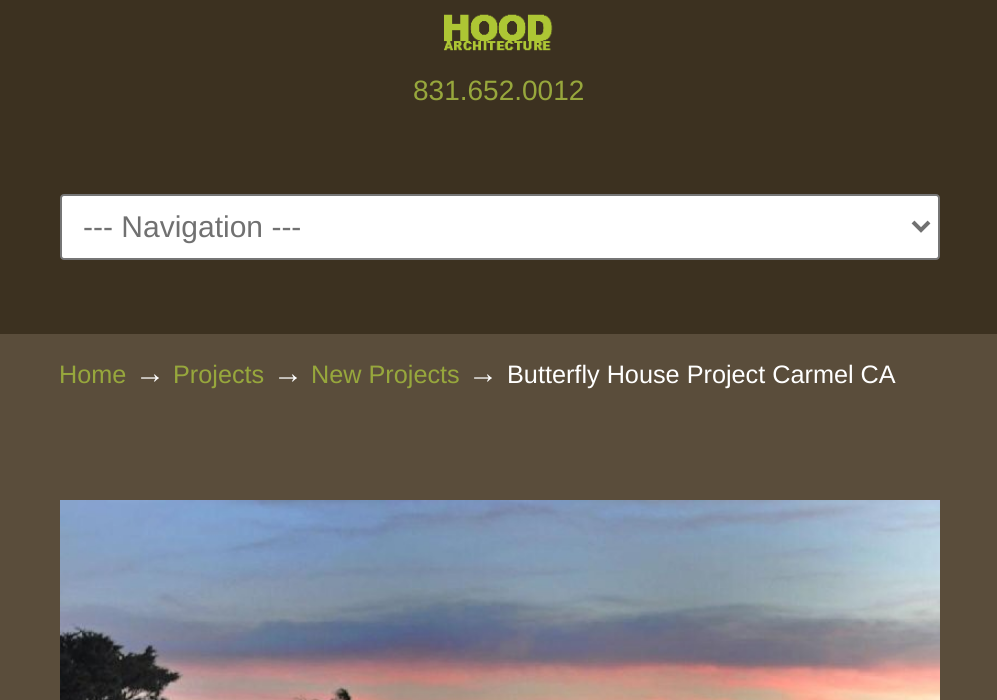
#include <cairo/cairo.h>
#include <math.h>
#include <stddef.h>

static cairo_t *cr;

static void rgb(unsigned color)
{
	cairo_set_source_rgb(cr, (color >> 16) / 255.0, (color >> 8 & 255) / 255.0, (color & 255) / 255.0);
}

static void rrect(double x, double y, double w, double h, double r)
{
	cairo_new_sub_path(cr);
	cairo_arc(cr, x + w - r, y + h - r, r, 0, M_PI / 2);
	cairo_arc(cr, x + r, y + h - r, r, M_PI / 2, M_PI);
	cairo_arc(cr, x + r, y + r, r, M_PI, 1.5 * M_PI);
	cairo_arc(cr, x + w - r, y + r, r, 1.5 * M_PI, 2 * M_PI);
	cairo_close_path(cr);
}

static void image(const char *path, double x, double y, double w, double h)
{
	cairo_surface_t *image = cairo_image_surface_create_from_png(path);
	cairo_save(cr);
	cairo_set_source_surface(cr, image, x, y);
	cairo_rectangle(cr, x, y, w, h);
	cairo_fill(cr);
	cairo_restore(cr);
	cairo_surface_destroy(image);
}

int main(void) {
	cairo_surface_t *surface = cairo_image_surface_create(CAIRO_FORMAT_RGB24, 997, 700);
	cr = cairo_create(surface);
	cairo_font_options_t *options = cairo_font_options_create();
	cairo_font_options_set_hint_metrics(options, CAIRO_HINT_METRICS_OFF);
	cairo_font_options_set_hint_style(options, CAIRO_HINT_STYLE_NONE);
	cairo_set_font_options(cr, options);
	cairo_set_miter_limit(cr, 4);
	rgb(0x5a4d3b);
	cairo_paint(cr);
	rgb(0x3c3120);
	cairo_rectangle(cr, 0, 0, 997, 334);
	cairo_fill(cr);
	image("img/1.png", 444, 14, 109, 37);
	rgb(0xffffff);
	rrect(61, 195, 878, 64, 3);
	cairo_fill_preserve(cr);
	rgb(0x767676);
	cairo_stroke(cr);
	cairo_new_path(cr);
	cairo_move_to(cr, 913, 222);
	cairo_line_to(cr, 921, 230);
	cairo_line_to(cr, 929, 222);
	rgb(0x717171);
	cairo_set_line_width(cr, 4);
	cairo_stroke(cr);
	image("img/2.png", 60, 500, 880, 200);
	cairo_select_font_face(cr, "Liberation Sans", CAIRO_FONT_SLANT_NORMAL, CAIRO_FONT_WEIGHT_NORMAL);
	cairo_set_font_size(cr, 28);
	rgb(0x97a73c);
	cairo_move_to(cr, 413, 100);
	cairo_show_text(cr, "831.652.0012");
	cairo_set_font_size(cr, 30);
	rgb(0x717171);
	cairo_move_to(cr, 83, 237);
	cairo_show_text(cr, "--- Navigation ---");
	cairo_set_font_size(cr, 25.25);
	rgb(0x97a73c);
	cairo_move_to(cr, 59, 383);
	cairo_show_text(cr, "Home");
	cairo_set_font_size(cr, 30);
	rgb(0xffffff);
	cairo_move_to(cr, 135, 383);
	cairo_show_text(cr, "→");
	cairo_set_font_size(cr, 25.25);
	rgb(0x97a73c);
	cairo_move_to(cr, 173, 383);
	cairo_show_text(cr, "Projects");
	cairo_set_font_size(cr, 30);
	rgb(0xffffff);
	cairo_move_to(cr, 273, 383);
	cairo_show_text(cr, "→");
	cairo_set_font_size(cr, 25.25);
	rgb(0x97a73c);
	cairo_move_to(cr, 311, 383);
	cairo_show_text(cr, "New Projects");
	cairo_set_font_size(cr, 30);
	rgb(0xffffff);
	cairo_move_to(cr, 468, 383);
	cairo_show_text(cr, "→");
	cairo_set_font_size(cr, 25.25);
	cairo_move_to(cr, 507, 383);
	cairo_show_text(cr, "Butterfly House Project Carmel CA");
	cairo_surface_write_to_png(surface, "page.png");
	cairo_font_options_destroy(options);
	cairo_destroy(cr);
	cairo_surface_destroy(surface);
	return 0;
}
